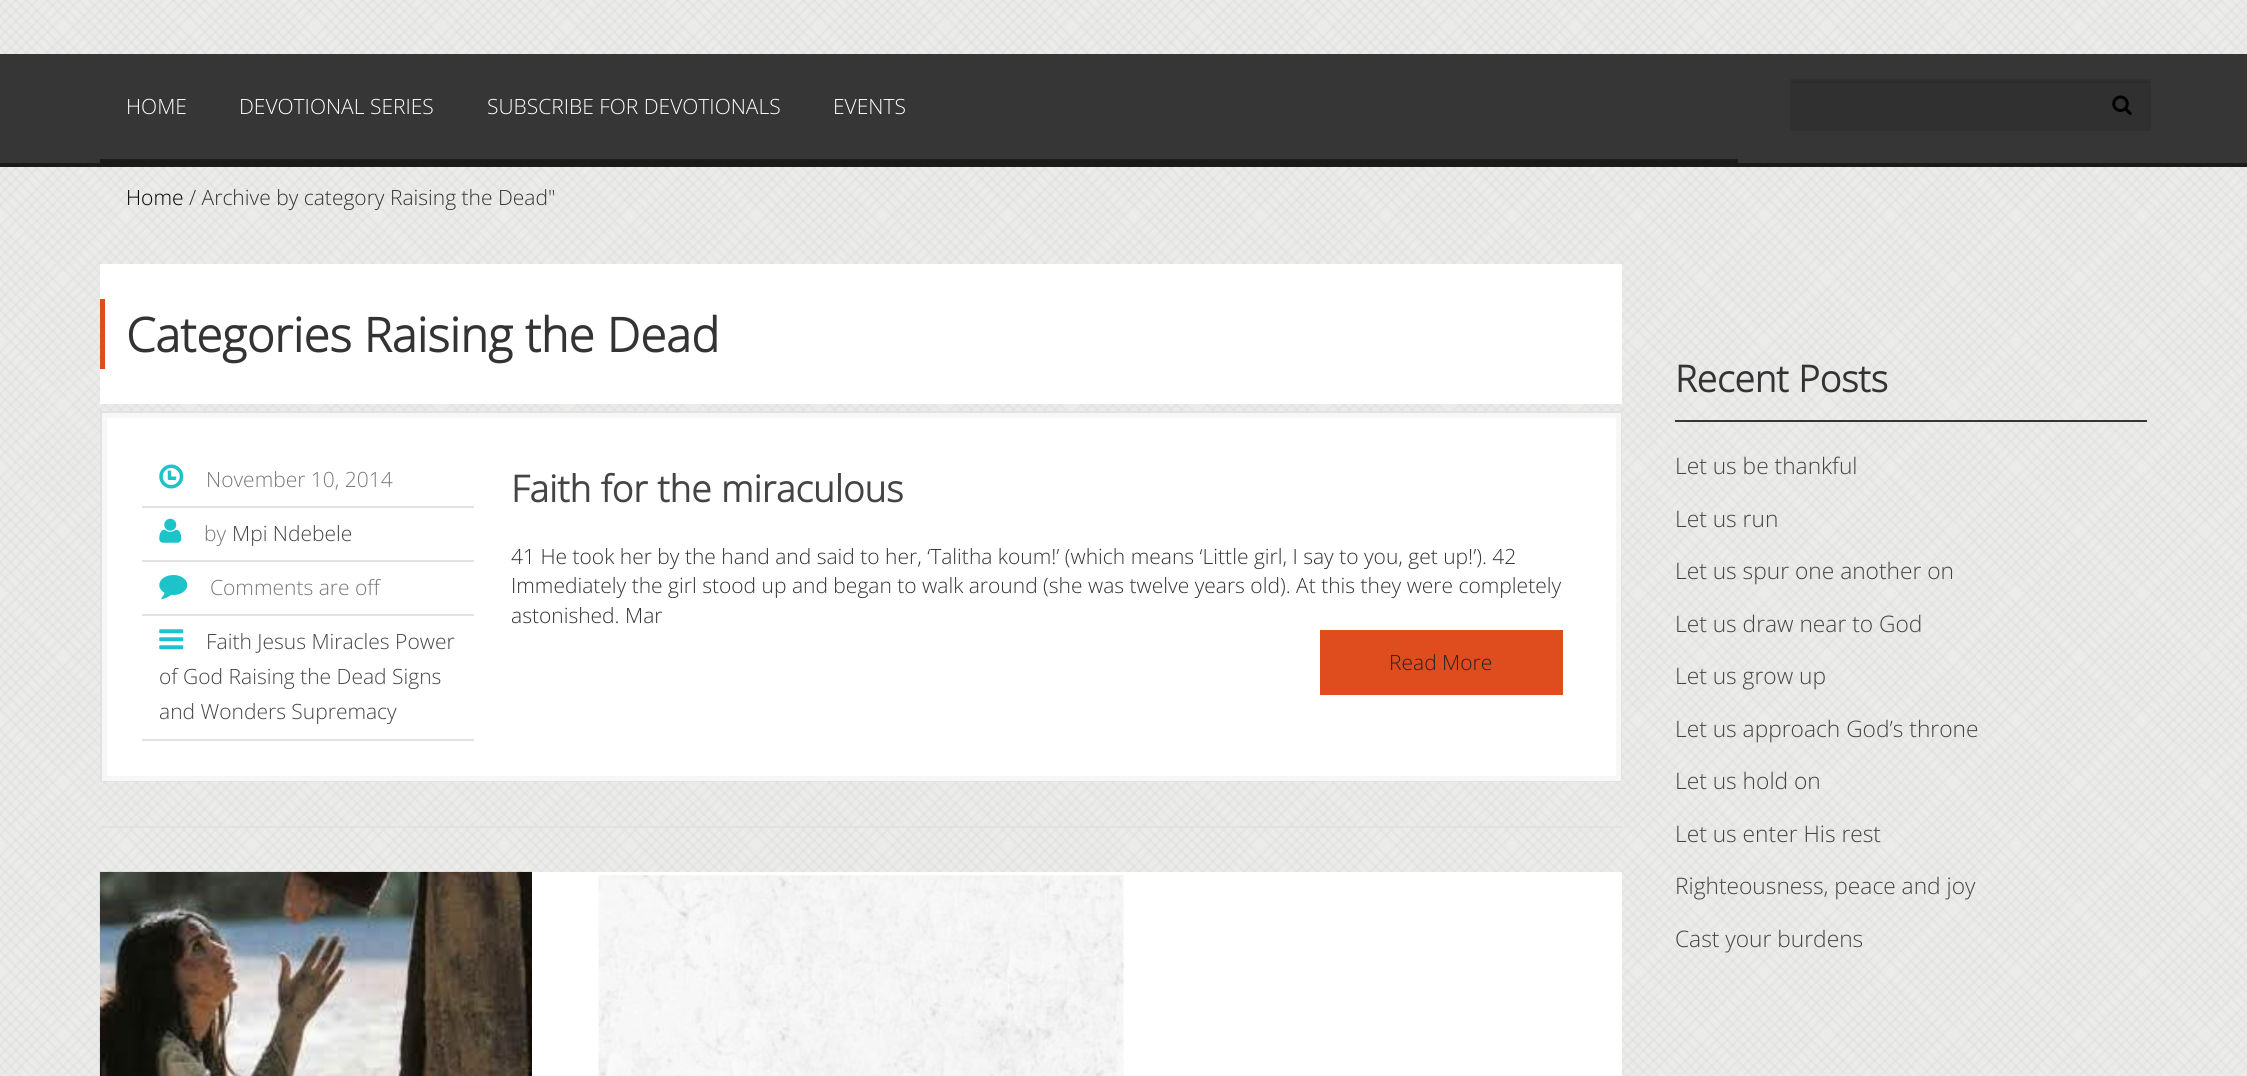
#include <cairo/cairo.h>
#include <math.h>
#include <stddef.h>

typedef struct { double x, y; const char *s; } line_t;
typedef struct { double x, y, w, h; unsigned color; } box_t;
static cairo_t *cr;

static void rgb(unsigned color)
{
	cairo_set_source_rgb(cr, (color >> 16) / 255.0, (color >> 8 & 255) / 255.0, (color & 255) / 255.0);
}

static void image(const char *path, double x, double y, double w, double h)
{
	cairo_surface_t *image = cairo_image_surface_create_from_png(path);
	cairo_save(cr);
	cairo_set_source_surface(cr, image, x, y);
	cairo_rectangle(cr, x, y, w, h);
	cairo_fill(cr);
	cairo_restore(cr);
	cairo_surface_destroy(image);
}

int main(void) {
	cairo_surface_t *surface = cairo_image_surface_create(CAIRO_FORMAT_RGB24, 2247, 1076);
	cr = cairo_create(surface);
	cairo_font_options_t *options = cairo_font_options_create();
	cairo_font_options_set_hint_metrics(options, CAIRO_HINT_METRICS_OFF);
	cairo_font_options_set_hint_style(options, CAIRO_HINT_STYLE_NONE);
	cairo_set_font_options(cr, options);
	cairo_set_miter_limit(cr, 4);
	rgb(0xffffff);
	cairo_paint(cr);
	image("img/1.png", 0, 0, 2247, 1076);
	{
		static const box_t items[] = {
			{0, 54, 2247, 109, 0x363636},
			{0, 163, 2247, 4, 0x1b1b1b},
			{100, 159, 1638, 4, 0x1b1b1b},
			{1790, 79, 361, 52, 0x303030},
			{1792, 81, 357, 2, 0x2c2c2c},
		};
		for (size_t i = 0; i < sizeof items / sizeof *items; i++) {
			rgb(items[i].color);
			cairo_rectangle(cr, items[i].x, items[i].y, items[i].w, items[i].h);
			cairo_fill(cr);
		}
	}
	image("img/2.png", 2112, 95, 20, 20);
	{
		static const box_t items[] = {
			{100, 264, 1522, 140, 0xffffff},
			{100, 299, 5, 70, 0xdf4c1d},
			{100, 826, 1522, 2, 0xe2e2e2},
		};
		for (size_t i = 0; i < sizeof items / sizeof *items; i++) {
			rgb(items[i].color);
			cairo_rectangle(cr, items[i].x, items[i].y, items[i].w, items[i].h);
			cairo_fill(cr);
		}
	}
	cairo_rectangle(cr, 101, 412, 1520, 369);
	cairo_stroke(cr);
	rgb(0xffffff);
	cairo_rectangle(cr, 104.5, 415.5, 1514, 363);
	cairo_fill_preserve(cr);
	rgb(0xf7f7f7);
	cairo_set_line_width(cr, 5);
	cairo_stroke(cr);
	rgb(0xe2e2e2);
	cairo_rectangle(cr, 142, 506, 332, 2);
	cairo_fill(cr);
	image("img/3.png", 159, 464, 25, 25);
	cairo_rectangle(cr, 142, 560, 332, 2);
	cairo_fill(cr);
	image("img/4.png", 159, 518, 23, 25);
	cairo_rectangle(cr, 142, 614, 332, 2);
	cairo_fill(cr);
	image("img/5.png", 159, 575, 29, 24);
	cairo_rectangle(cr, 142, 739, 332, 2);
	cairo_fill(cr);
	image("img/6.png", 159, 629, 25, 21);
	rgb(0xdf4c1d);
	cairo_rectangle(cr, 1320, 630, 243, 65);
	cairo_fill(cr);
	rgb(0xffffff);
	cairo_rectangle(cr, 532, 872, 1090, 204);
	cairo_fill(cr);
	image("img/7.png", 598, 875, 526, 201);
	image("img/8.png", 99, 871, 433, 205);
	rgb(0x363636);
	cairo_rectangle(cr, 1675, 420, 472, 2);
	cairo_fill(cr);
	cairo_select_font_face(cr, "Open Sans Light", CAIRO_FONT_SLANT_NORMAL, CAIRO_FONT_WEIGHT_NORMAL);
	cairo_set_font_size(cr, 21);
	rgb(0xffffff);
	{
		static const line_t items[] = {
			{126, 114, "HOME"},
			{239, 114, "DEVOTIONAL SERIES"},
			{487, 114, "SUBSCRIBE FOR DEVOTIONALS"},
			{833, 114, "EVENTS"},
		};
		for (size_t i = 0; i < sizeof items / sizeof *items; i++) {
			cairo_move_to(cr, items[i].x, items[i].y);
			cairo_show_text(cr, items[i].s);
		}
	}
	rgb(0x000000);
	cairo_move_to(cr, 126, 205);
	cairo_show_text(cr, "Home");
	rgb(0x333333);
	cairo_move_to(cr, 189, 205);
	cairo_show_text(cr, "/ Archive by category Raising the Dead\"");
	cairo_select_font_face(cr, "Open Sans", CAIRO_FONT_SLANT_NORMAL, CAIRO_FONT_WEIGHT_BOLD);
	cairo_set_font_size(cr, 47.25);
	cairo_move_to(cr, 126, 352);
	cairo_show_text(cr, "Categories Raising the Dead");
	cairo_select_font_face(cr, "Open Sans Light", CAIRO_FONT_SLANT_NORMAL, CAIRO_FONT_WEIGHT_NORMAL);
	cairo_set_font_size(cr, 21);
	rgb(0x787878);
	cairo_move_to(cr, 206, 487);
	cairo_show_text(cr, "November 10, 2014");
	cairo_move_to(cr, 204, 541);
	cairo_show_text(cr, "by");
	rgb(0x444444);
	cairo_move_to(cr, 232, 541);
	cairo_show_text(cr, "Mpi Ndebele");
	rgb(0x787878);
	cairo_move_to(cr, 210, 595);
	cairo_show_text(cr, "Comments are off");
	rgb(0x444444);
	{
		static const line_t items[] = {
			{206, 649, "Faith Jesus Miracles Power"},
			{159, 684, "of God Raising the Dead Signs"},
			{159, 719, "and Wonders Supremacy"},
		};
		for (size_t i = 0; i < sizeof items / sizeof *items; i++) {
			cairo_move_to(cr, items[i].x, items[i].y);
			cairo_show_text(cr, items[i].s);
		}
	}
	cairo_select_font_face(cr, "Open Sans", CAIRO_FONT_SLANT_NORMAL, CAIRO_FONT_WEIGHT_BOLD);
	cairo_set_font_size(cr, 36.75);
	cairo_move_to(cr, 511, 502);
	cairo_show_text(cr, "Faith for the miraculous");
	cairo_select_font_face(cr, "Open Sans Light", CAIRO_FONT_SLANT_NORMAL, CAIRO_FONT_WEIGHT_NORMAL);
	cairo_set_font_size(cr, 21);
	rgb(0x333333);
	{
		static const line_t items[] = {
			{511, 564, "41 He took her by the hand and said to her, ‘Talitha koum!’ (which means ‘Little girl, I say to you, get up!’). 42"},
			{511, 593, "Immediately the girl stood up and began to walk around (she was twelve years old). At this they were completely"},
			{511, 623, "astonished. Mar"},
		};
		for (size_t i = 0; i < sizeof items / sizeof *items; i++) {
			cairo_move_to(cr, items[i].x, items[i].y);
			cairo_show_text(cr, items[i].s);
		}
	}
	rgb(0x242424);
	cairo_move_to(cr, 1389, 670);
	cairo_show_text(cr, "Read More");
	cairo_select_font_face(cr, "Open Sans", CAIRO_FONT_SLANT_NORMAL, CAIRO_FONT_WEIGHT_BOLD);
	cairo_set_font_size(cr, 36.75);
	rgb(0x333333);
	cairo_move_to(cr, 1675, 392);
	cairo_show_text(cr, "Recent Posts");
	cairo_select_font_face(cr, "Open Sans Light", CAIRO_FONT_SLANT_NORMAL, CAIRO_FONT_WEIGHT_NORMAL);
	cairo_set_font_size(cr, 22.75);
	rgb(0x444444);
	{
		static const line_t items[] = {
			{1675, 474, "Let us be thankful"},
			{1675, 527, "Let us run"},
			{1675, 579, "Let us spur one another on"},
			{1675, 632, "Let us draw near to God"},
			{1675, 684, "Let us grow up"},
			{1675, 737, "Let us approach God’s throne"},
			{1675, 789, "Let us hold on"},
			{1675, 842, "Let us enter His rest"},
			{1675, 894, "Righteousness, peace and joy"},
			{1675, 947, "Cast your burdens"},
		};
		for (size_t i = 0; i < sizeof items / sizeof *items; i++) {
			cairo_move_to(cr, items[i].x, items[i].y);
			cairo_show_text(cr, items[i].s);
		}
	}
	cairo_surface_write_to_png(surface, "page.png");
	cairo_font_options_destroy(options);
	cairo_destroy(cr);
	cairo_surface_destroy(surface);
	return 0;
}
